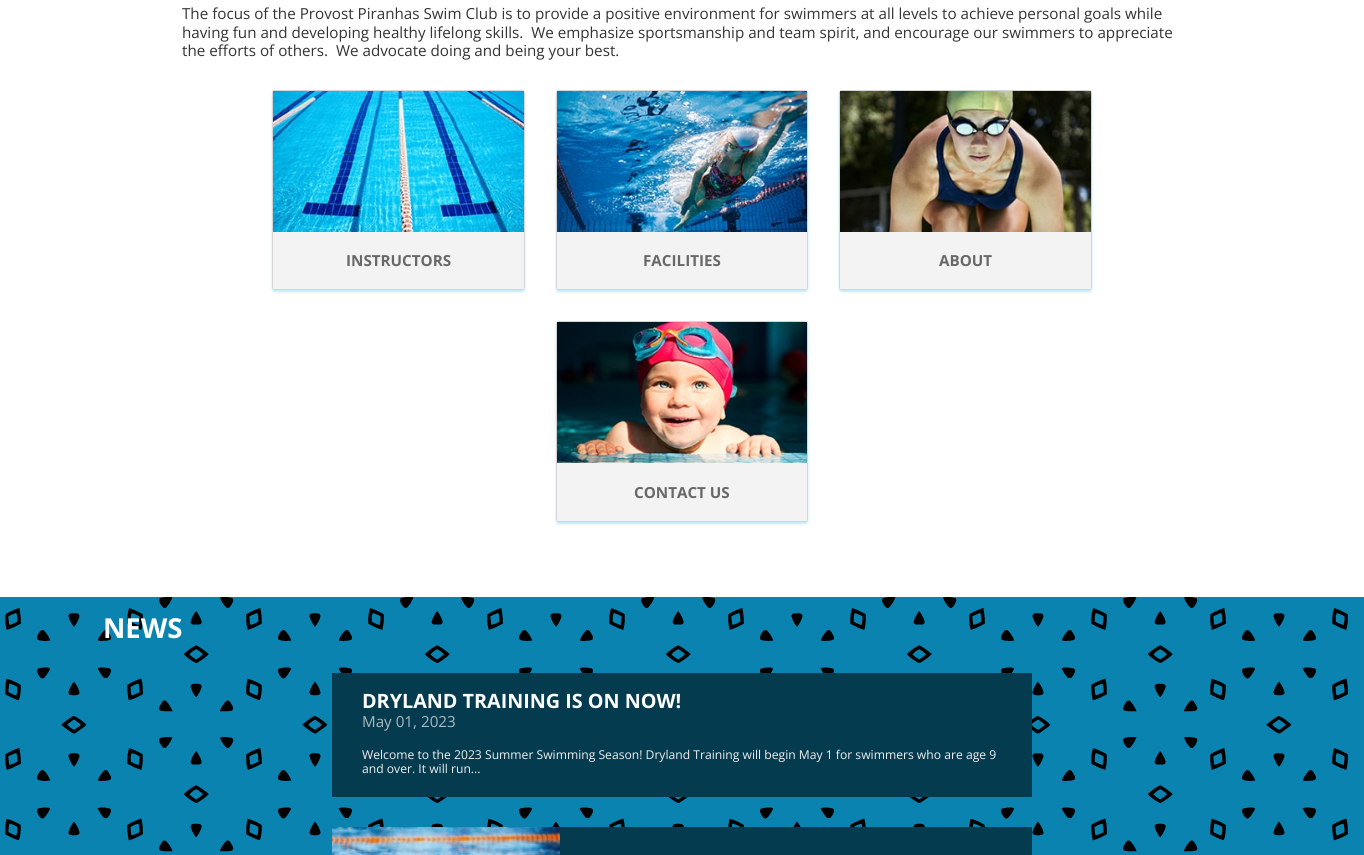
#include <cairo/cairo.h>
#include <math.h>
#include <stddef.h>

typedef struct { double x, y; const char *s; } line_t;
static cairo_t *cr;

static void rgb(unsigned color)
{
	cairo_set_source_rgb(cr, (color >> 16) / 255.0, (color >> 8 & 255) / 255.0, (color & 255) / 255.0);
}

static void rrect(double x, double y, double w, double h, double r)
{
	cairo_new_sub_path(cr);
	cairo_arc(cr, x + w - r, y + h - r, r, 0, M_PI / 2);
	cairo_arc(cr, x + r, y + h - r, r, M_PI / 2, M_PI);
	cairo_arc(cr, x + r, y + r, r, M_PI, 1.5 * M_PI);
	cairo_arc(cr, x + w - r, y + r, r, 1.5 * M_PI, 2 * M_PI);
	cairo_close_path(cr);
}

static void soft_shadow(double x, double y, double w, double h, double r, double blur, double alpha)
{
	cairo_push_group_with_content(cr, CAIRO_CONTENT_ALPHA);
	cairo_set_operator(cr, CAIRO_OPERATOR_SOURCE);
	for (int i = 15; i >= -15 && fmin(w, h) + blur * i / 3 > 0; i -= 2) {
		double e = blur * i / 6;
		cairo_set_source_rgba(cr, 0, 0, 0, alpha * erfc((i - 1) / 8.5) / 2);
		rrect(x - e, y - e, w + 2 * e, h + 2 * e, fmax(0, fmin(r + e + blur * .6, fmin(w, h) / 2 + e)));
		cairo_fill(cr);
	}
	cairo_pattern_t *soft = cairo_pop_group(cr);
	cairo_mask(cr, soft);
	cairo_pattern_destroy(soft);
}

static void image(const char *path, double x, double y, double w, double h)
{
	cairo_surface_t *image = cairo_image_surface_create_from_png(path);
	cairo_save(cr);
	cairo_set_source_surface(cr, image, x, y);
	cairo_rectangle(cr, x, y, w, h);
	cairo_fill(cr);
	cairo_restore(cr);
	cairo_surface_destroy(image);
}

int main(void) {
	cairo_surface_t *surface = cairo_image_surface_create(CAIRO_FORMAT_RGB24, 1364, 855);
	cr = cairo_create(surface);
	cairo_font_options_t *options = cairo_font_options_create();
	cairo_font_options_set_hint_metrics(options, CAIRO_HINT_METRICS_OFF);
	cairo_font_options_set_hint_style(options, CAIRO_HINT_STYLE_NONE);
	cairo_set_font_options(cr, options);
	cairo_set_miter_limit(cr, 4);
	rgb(0xffffff);
	cairo_paint(cr);
	rgb(0xbeebfb);
	soft_shadow(272, 92, 253, 200, 3, 1, 1);
	rrect(272.5, 90.5, 252, 199, 2.5);
	rgb(0xd5d5d5);
	cairo_set_line_width(cr, 1);
	cairo_stroke(cr);
	image("img/1.png", 273, 91, 251, 141);
	rgb(0xf3f3f3);
	cairo_rectangle(cr, 273, 232, 251, 57);
	cairo_fill(cr);
	rgb(0xbeebfb);
	soft_shadow(556, 92, 252, 200, 3, 1, 1);
	rrect(556.5, 90.5, 251, 199, 2.5);
	rgb(0xd5d5d5);
	cairo_stroke(cr);
	image("img/2.png", 557, 91, 250, 141);
	rgb(0xf3f3f3);
	cairo_rectangle(cr, 557, 232, 250, 57);
	cairo_fill(cr);
	rgb(0xbeebfb);
	soft_shadow(839, 92, 253, 200, 3, 1, 1);
	rrect(839.5, 90.5, 252, 199, 2.5);
	rgb(0xd5d5d5);
	cairo_stroke(cr);
	image("img/3.png", 840, 91, 251, 141);
	rgb(0xf3f3f3);
	cairo_rectangle(cr, 840, 232, 251, 57);
	cairo_fill(cr);
	rgb(0xbeebfb);
	soft_shadow(556, 323, 252, 201, 3, 1, 1);
	rrect(556.5, 321.5, 251, 200, 2.5);
	rgb(0xd5d5d5);
	cairo_stroke(cr);
	image("img/4.png", 557, 322, 250, 141);
	rgb(0xf3f3f3);
	cairo_rectangle(cr, 557, 463, 250, 58);
	cairo_fill(cr);
	rgb(0x0a83b0);
	cairo_rectangle(cr, 0, 597, 1364, 258);
	cairo_fill(cr);
	image("img/5.png", 5, 597, 1343, 255);
	rgb(0x053b4f);
	cairo_rectangle(cr, 332, 673, 700, 124);
	cairo_fill(cr);
	cairo_rectangle(cr, 560, 827, 472, 28);
	cairo_fill(cr);
	image("img/6.png", 332, 827, 228, 28);
	cairo_select_font_face(cr, "Open Sans", CAIRO_FONT_SLANT_NORMAL, CAIRO_FONT_WEIGHT_NORMAL);
	cairo_set_font_size(cr, 15.2);
	rgb(0x343434);
	{
		static const line_t items[] = {
			{182, 19, "The focus of the Provost Piranhas Swim Club is to provide a positive environment for swimmers at all levels to achieve personal goals while"},
			{182, 38, "having fun and developing healthy lifelong skills.  We emphasize sportsmanship and team spirit, and encourage our swimmers to appreciate"},
			{182, 56, "the efforts of others.  We advocate doing and being your best."},
		};
		for (size_t i = 0; i < sizeof items / sizeof *items; i++) {
			cairo_move_to(cr, items[i].x, items[i].y);
			cairo_show_text(cr, items[i].s);
		}
	}
	cairo_select_font_face(cr, "Open Sans", CAIRO_FONT_SLANT_NORMAL, CAIRO_FONT_WEIGHT_BOLD);
	rgb(0x686868);
	{
		static const line_t items[] = {
			{346, 266, "INSTRUCTORS"},
			{643, 266, "FACILITIES"},
			{939, 266, "ABOUT"},
			{634, 498, "CONTACT US"},
		};
		for (size_t i = 0; i < sizeof items / sizeof *items; i++) {
			cairo_move_to(cr, items[i].x, items[i].y);
			cairo_show_text(cr, items[i].s);
		}
	}
	cairo_set_font_size(cr, 27.5);
	rgb(0xffffff);
	cairo_move_to(cr, 103, 638);
	cairo_show_text(cr, "NEWS");
	cairo_set_font_size(cr, 19.75);
	cairo_move_to(cr, 362, 708);
	cairo_show_text(cr, "DRYLAND TRAINING IS ON NOW!");
	cairo_select_font_face(cr, "Open Sans", CAIRO_FONT_SLANT_NORMAL, CAIRO_FONT_WEIGHT_NORMAL);
	cairo_set_font_size(cr, 15.2);
	rgb(0xa9b9bf);
	cairo_move_to(cr, 362, 727);
	cairo_show_text(cr, "May 01, 2023");
	cairo_set_font_size(cr, 12.15);
	rgb(0xefefef);
	cairo_move_to(cr, 362, 759);
	cairo_show_text(cr, "Welcome to the 2023 Summer Swimming Season! Dryland Training will begin May 1 for swimmers who are age 9");
	cairo_move_to(cr, 362, 773);
	cairo_show_text(cr, "and over. It will run...");
	cairo_surface_write_to_png(surface, "page.png");
	cairo_font_options_destroy(options);
	cairo_destroy(cr);
	cairo_surface_destroy(surface);
	return 0;
}
